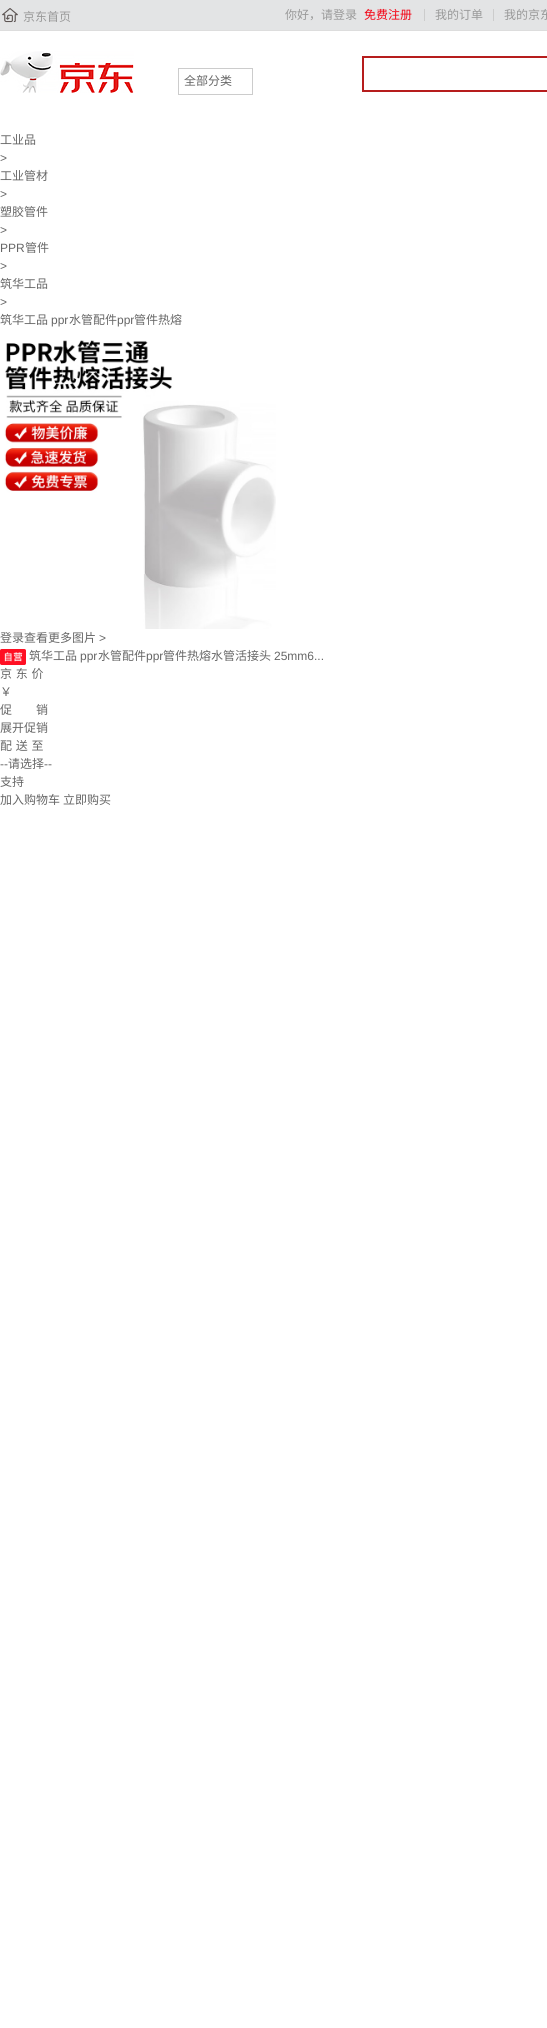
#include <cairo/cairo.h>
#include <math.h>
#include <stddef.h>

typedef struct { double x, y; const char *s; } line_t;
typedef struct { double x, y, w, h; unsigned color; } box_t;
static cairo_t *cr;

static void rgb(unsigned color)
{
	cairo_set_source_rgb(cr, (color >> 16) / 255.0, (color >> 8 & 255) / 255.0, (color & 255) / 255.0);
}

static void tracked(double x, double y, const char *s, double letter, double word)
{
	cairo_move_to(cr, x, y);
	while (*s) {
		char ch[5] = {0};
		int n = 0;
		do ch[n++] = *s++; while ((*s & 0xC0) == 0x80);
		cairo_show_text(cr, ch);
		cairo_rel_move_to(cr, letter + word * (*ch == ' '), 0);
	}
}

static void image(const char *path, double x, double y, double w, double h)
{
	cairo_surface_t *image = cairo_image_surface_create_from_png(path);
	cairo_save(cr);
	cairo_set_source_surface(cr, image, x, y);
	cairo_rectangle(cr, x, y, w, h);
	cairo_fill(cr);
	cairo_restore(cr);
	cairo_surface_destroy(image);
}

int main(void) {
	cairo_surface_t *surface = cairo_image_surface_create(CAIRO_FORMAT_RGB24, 547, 2028);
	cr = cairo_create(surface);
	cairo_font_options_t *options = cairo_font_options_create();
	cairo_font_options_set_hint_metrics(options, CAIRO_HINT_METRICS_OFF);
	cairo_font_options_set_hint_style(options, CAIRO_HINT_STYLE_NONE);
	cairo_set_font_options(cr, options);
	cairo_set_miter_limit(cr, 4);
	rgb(0xffffff);
	cairo_paint(cr);
	rgb(0xe3e4e5);
	cairo_rectangle(cr, 0, 0, 547, 30);
	cairo_fill(cr);
	rgb(0xdddddd);
	cairo_rectangle(cr, 0, 30, 547, 1);
	cairo_fill(cr);
	image("img/1.png", 2, 8, 16, 15);
	rgb(0xcccccc);
	cairo_rectangle(cr, 424, 9, 1, 12);
	cairo_fill(cr);
	cairo_rectangle(cr, 493, 9, 1, 12);
	cairo_fill(cr);
	image("img/2.png", 0, 51, 134, 42);
	cairo_rectangle(cr, 178.5, 68.5, 74, 26);
	cairo_set_line_width(cr, 1);
	cairo_stroke(cr);
	{
		static const box_t items[] = {
			{362, 56, 185, 2, 0xb61d1d},
			{362, 90, 185, 2, 0xb61d1d},
			{362, 56, 2, 36, 0xb61d1d},
		};
		for (size_t i = 0; i < sizeof items / sizeof *items; i++) {
			rgb(items[i].color);
			cairo_rectangle(cr, items[i].x, items[i].y, items[i].w, items[i].h);
			cairo_fill(cr);
		}
	}
	image("img/3.png", 4, 340, 272, 289);
	image("img/4.png", 0, 649, 26, 16);
	cairo_select_font_face(cr, "Noto Sans CJK SC", CAIRO_FONT_SLANT_NORMAL, CAIRO_FONT_WEIGHT_NORMAL);
	cairo_set_font_size(cr, 12);
	rgb(0x999999);
	cairo_move_to(cr, 23, 21);
	cairo_show_text(cr, "京东首页");
	cairo_move_to(cr, 285, 19);
	cairo_show_text(cr, "你好，请登录");
	rgb(0xf30213);
	cairo_move_to(cr, 364, 19);
	cairo_show_text(cr, "免费注册");
	rgb(0x999999);
	cairo_move_to(cr, 435, 19);
	cairo_show_text(cr, "我的订单");
	cairo_move_to(cr, 504, 19);
	cairo_show_text(cr, "我的京东");
	rgb(0x666666);
	cairo_move_to(cr, 184, 85);
	cairo_show_text(cr, "全部分类");
	cairo_move_to(cr, 0, 144);
	cairo_show_text(cr, "工业品");
	cairo_select_font_face(cr, "Liberation Sans", CAIRO_FONT_SLANT_NORMAL, CAIRO_FONT_WEIGHT_NORMAL);
	cairo_move_to(cr, 0, 162);
	cairo_show_text(cr, ">");
	cairo_select_font_face(cr, "Noto Sans CJK SC", CAIRO_FONT_SLANT_NORMAL, CAIRO_FONT_WEIGHT_NORMAL);
	cairo_move_to(cr, 0, 180);
	cairo_show_text(cr, "工业管材");
	cairo_select_font_face(cr, "Liberation Sans", CAIRO_FONT_SLANT_NORMAL, CAIRO_FONT_WEIGHT_NORMAL);
	cairo_move_to(cr, 0, 198);
	cairo_show_text(cr, ">");
	cairo_select_font_face(cr, "Noto Sans CJK SC", CAIRO_FONT_SLANT_NORMAL, CAIRO_FONT_WEIGHT_NORMAL);
	cairo_move_to(cr, 0, 216);
	cairo_show_text(cr, "塑胶管件");
	cairo_select_font_face(cr, "Liberation Sans", CAIRO_FONT_SLANT_NORMAL, CAIRO_FONT_WEIGHT_NORMAL);
	cairo_move_to(cr, 0, 234);
	cairo_show_text(cr, ">");
	cairo_move_to(cr, 0, 252);
	cairo_show_text(cr, "PPR");
	cairo_select_font_face(cr, "Noto Sans CJK SC", CAIRO_FONT_SLANT_NORMAL, CAIRO_FONT_WEIGHT_NORMAL);
	cairo_move_to(cr, 25, 252);
	cairo_show_text(cr, "管件");
	cairo_select_font_face(cr, "Liberation Sans", CAIRO_FONT_SLANT_NORMAL, CAIRO_FONT_WEIGHT_NORMAL);
	cairo_move_to(cr, 0, 270);
	cairo_show_text(cr, ">");
	cairo_select_font_face(cr, "Noto Sans CJK SC", CAIRO_FONT_SLANT_NORMAL, CAIRO_FONT_WEIGHT_NORMAL);
	cairo_move_to(cr, 0, 288);
	cairo_show_text(cr, "筑华工品");
	cairo_select_font_face(cr, "Liberation Sans", CAIRO_FONT_SLANT_NORMAL, CAIRO_FONT_WEIGHT_NORMAL);
	cairo_move_to(cr, 0, 306);
	cairo_show_text(cr, ">");
	cairo_select_font_face(cr, "Noto Sans CJK SC", CAIRO_FONT_SLANT_NORMAL, CAIRO_FONT_WEIGHT_NORMAL);
	cairo_move_to(cr, 0, 324);
	cairo_show_text(cr, "筑华工品");
	cairo_select_font_face(cr, "Liberation Sans", CAIRO_FONT_SLANT_NORMAL, CAIRO_FONT_WEIGHT_NORMAL);
	cairo_move_to(cr, 51, 324);
	cairo_show_text(cr, "ppr");
	cairo_select_font_face(cr, "Noto Sans CJK SC", CAIRO_FONT_SLANT_NORMAL, CAIRO_FONT_WEIGHT_NORMAL);
	cairo_move_to(cr, 69, 324);
	cairo_show_text(cr, "水管配件");
	cairo_select_font_face(cr, "Liberation Sans", CAIRO_FONT_SLANT_NORMAL, CAIRO_FONT_WEIGHT_NORMAL);
	cairo_move_to(cr, 117, 324);
	cairo_show_text(cr, "ppr");
	cairo_select_font_face(cr, "Noto Sans CJK SC", CAIRO_FONT_SLANT_NORMAL, CAIRO_FONT_WEIGHT_NORMAL);
	cairo_move_to(cr, 134, 324);
	cairo_show_text(cr, "管件热熔");
	cairo_move_to(cr, 0, 642);
	cairo_show_text(cr, "登录查看更多图片");
	cairo_select_font_face(cr, "Liberation Sans", CAIRO_FONT_SLANT_NORMAL, CAIRO_FONT_WEIGHT_NORMAL);
	cairo_move_to(cr, 99, 642);
	cairo_show_text(cr, ">");
	cairo_select_font_face(cr, "Noto Sans CJK SC", CAIRO_FONT_SLANT_NORMAL, CAIRO_FONT_WEIGHT_NORMAL);
	cairo_move_to(cr, 29, 660);
	cairo_show_text(cr, "筑华工品");
	cairo_select_font_face(cr, "Liberation Sans", CAIRO_FONT_SLANT_NORMAL, CAIRO_FONT_WEIGHT_NORMAL);
	cairo_move_to(cr, 80, 660);
	cairo_show_text(cr, "ppr");
	cairo_select_font_face(cr, "Noto Sans CJK SC", CAIRO_FONT_SLANT_NORMAL, CAIRO_FONT_WEIGHT_NORMAL);
	cairo_move_to(cr, 98, 660);
	cairo_show_text(cr, "水管配件");
	cairo_select_font_face(cr, "Liberation Sans", CAIRO_FONT_SLANT_NORMAL, CAIRO_FONT_WEIGHT_NORMAL);
	cairo_move_to(cr, 146, 660);
	cairo_show_text(cr, "ppr");
	cairo_select_font_face(cr, "Noto Sans CJK SC", CAIRO_FONT_SLANT_NORMAL, CAIRO_FONT_WEIGHT_NORMAL);
	cairo_move_to(cr, 163, 660);
	cairo_show_text(cr, "管件热熔水管活接头");
	cairo_select_font_face(cr, "Liberation Sans", CAIRO_FONT_SLANT_NORMAL, CAIRO_FONT_WEIGHT_NORMAL);
	cairo_move_to(cr, 274, 660);
	cairo_show_text(cr, "25mm6...");
	cairo_select_font_face(cr, "Noto Sans CJK SC", CAIRO_FONT_SLANT_NORMAL, CAIRO_FONT_WEIGHT_NORMAL);
	tracked(0, 678, "京 东 价", 0, 1);
	{
		static const line_t items[] = {
			{0, 696, "￥"},
			{0, 714, "促　　销"},
			{0, 732, "展开促销"},
		};
		for (size_t i = 0; i < sizeof items / sizeof *items; i++) {
			cairo_move_to(cr, items[i].x, items[i].y);
			cairo_show_text(cr, items[i].s);
		}
	}
	tracked(0, 750, "配 送 至", 0, 1);
	cairo_select_font_face(cr, "Liberation Sans", CAIRO_FONT_SLANT_NORMAL, CAIRO_FONT_WEIGHT_NORMAL);
	cairo_move_to(cr, 0, 768);
	cairo_show_text(cr, "--");
	cairo_select_font_face(cr, "Noto Sans CJK SC", CAIRO_FONT_SLANT_NORMAL, CAIRO_FONT_WEIGHT_NORMAL);
	cairo_move_to(cr, 8, 768);
	cairo_show_text(cr, "请选择");
	cairo_select_font_face(cr, "Liberation Sans", CAIRO_FONT_SLANT_NORMAL, CAIRO_FONT_WEIGHT_NORMAL);
	cairo_move_to(cr, 44, 768);
	cairo_show_text(cr, "--");
	cairo_select_font_face(cr, "Noto Sans CJK SC", CAIRO_FONT_SLANT_NORMAL, CAIRO_FONT_WEIGHT_NORMAL);
	{
		static const line_t items[] = {
			{0, 786, "支持"},
			{0, 804, "加入购物车"},
			{63, 804, "立即购买"},
		};
		for (size_t i = 0; i < sizeof items / sizeof *items; i++) {
			cairo_move_to(cr, items[i].x, items[i].y);
			cairo_show_text(cr, items[i].s);
		}
	}
	cairo_surface_write_to_png(surface, "page.png");
	cairo_font_options_destroy(options);
	cairo_destroy(cr);
	cairo_surface_destroy(surface);
	return 0;
}
